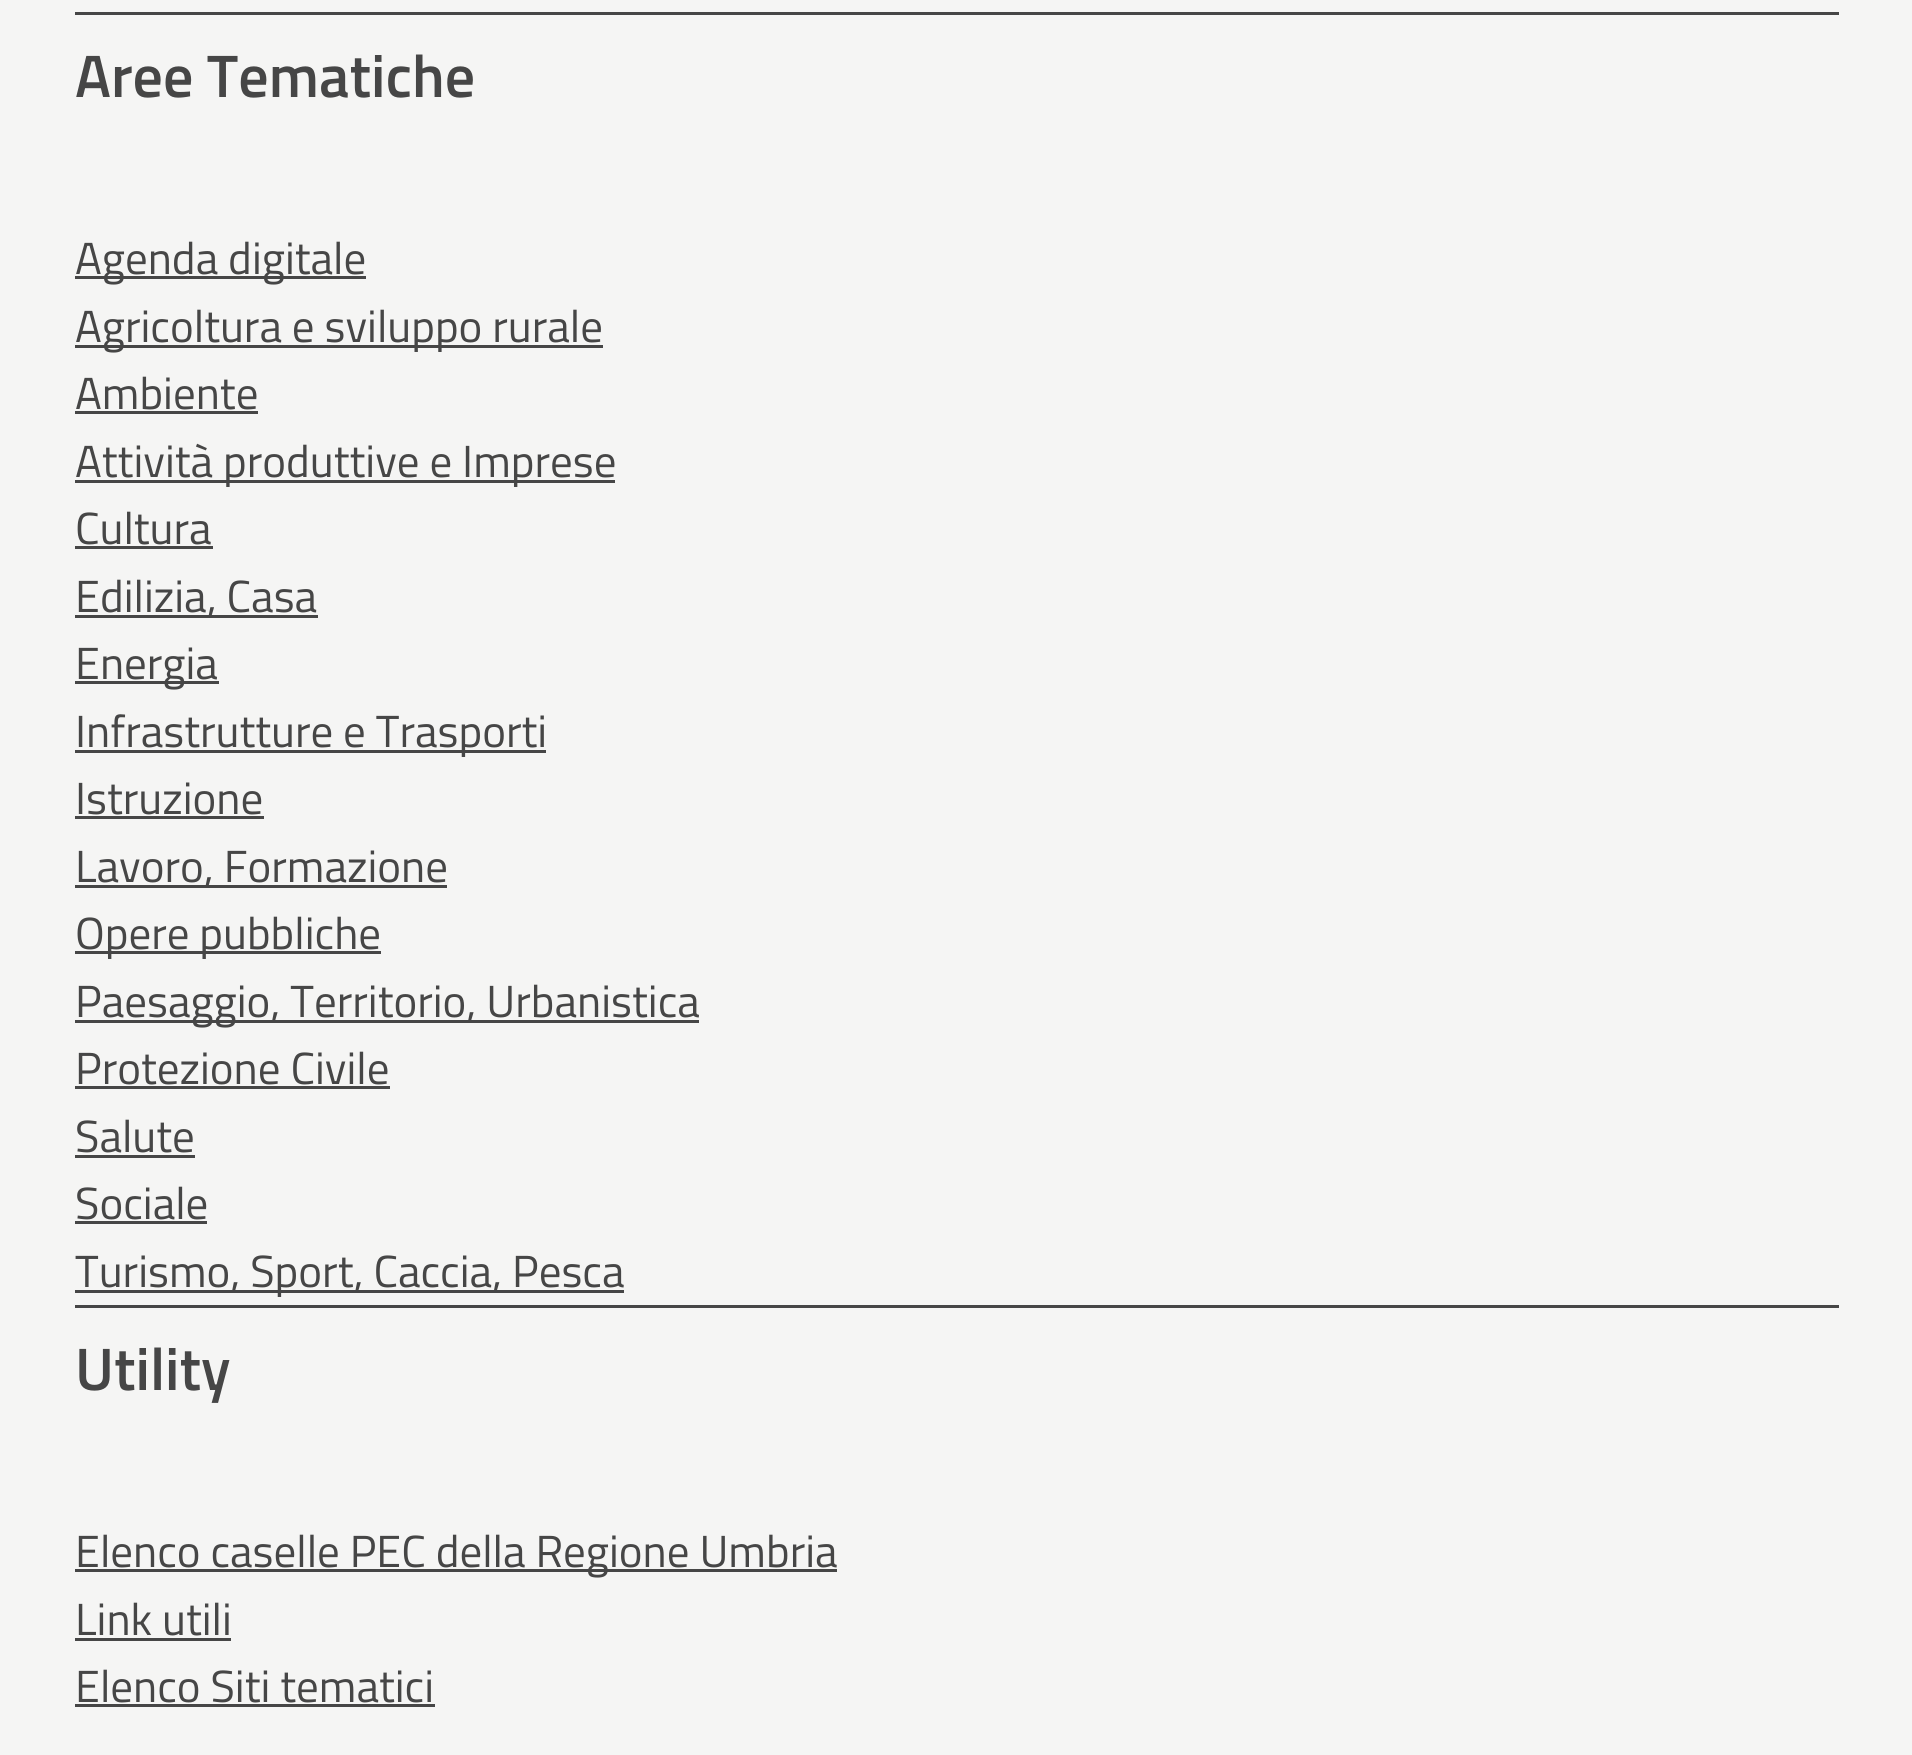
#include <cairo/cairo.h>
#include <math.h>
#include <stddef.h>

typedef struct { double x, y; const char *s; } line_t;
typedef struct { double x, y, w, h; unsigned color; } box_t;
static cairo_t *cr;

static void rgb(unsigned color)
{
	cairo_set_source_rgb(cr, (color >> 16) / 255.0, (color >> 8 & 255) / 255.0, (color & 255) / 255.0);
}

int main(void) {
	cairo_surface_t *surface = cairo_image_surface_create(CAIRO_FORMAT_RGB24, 1912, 1755);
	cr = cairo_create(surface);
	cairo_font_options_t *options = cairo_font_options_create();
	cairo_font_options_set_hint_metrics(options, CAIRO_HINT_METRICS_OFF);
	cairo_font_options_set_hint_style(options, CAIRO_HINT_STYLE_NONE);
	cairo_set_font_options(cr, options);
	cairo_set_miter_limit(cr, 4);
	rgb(0xf5f5f4);
	cairo_paint(cr);
	{
		static const box_t items[] = {
			{75, 12, 1764, 3, 0x464646},
			{75, 276, 291, 3, 0x464646},
			{75, 345, 528, 3, 0x464646},
			{75, 411, 183, 3, 0x464646},
			{75, 480, 540, 3, 0x464646},
			{75, 546, 138, 3, 0x464646},
			{75, 615, 243, 3, 0x464646},
			{75, 681, 144, 3, 0x464646},
			{75, 750, 471, 3, 0x464646},
			{75, 816, 189, 3, 0x464646},
			{75, 885, 372, 3, 0x464646},
			{75, 951, 306, 3, 0x464646},
			{75, 1020, 624, 3, 0x464646},
			{75, 1086, 315, 3, 0x464646},
			{75, 1155, 120, 3, 0x464646},
			{75, 1221, 132, 3, 0x464646},
			{75, 1290, 549, 3, 0x464646},
			{75, 1305, 1764, 3, 0x464646},
			{75, 1569, 762, 3, 0x464646},
			{75, 1638, 156, 3, 0x464646},
			{75, 1704, 360, 3, 0x464646},
		};
		for (size_t i = 0; i < sizeof items / sizeof *items; i++) {
			rgb(items[i].color);
			cairo_rectangle(cr, items[i].x, items[i].y, items[i].w, items[i].h);
			cairo_fill(cr);
		}
	}
	cairo_select_font_face(cr, "Titillium Web SemiBold", CAIRO_FONT_SLANT_NORMAL, CAIRO_FONT_WEIGHT_NORMAL);
	cairo_set_font_size(cr, 60);
	cairo_move_to(cr, 75, 97);
	cairo_show_text(cr, "Aree Tematiche");
	cairo_select_font_face(cr, "Titillium Web", CAIRO_FONT_SLANT_NORMAL, CAIRO_FONT_WEIGHT_NORMAL);
	cairo_set_font_size(cr, 45);
	{
		static const line_t items[] = {
			{75, 274, "Agenda digitale"},
			{75, 342, "Agricoltura e sviluppo rurale"},
			{75, 409, "Ambiente"},
			{75, 477, "Attività produttive e Imprese"},
			{75, 544, "Cultura"},
			{75, 612, "Edilizia, Casa"},
			{75, 679, "Energia"},
			{75, 747, "Infrastrutture e Trasporti"},
			{75, 814, "Istruzione"},
			{75, 882, "Lavoro, Formazione"},
			{75, 949, "Opere pubbliche"},
			{75, 1017, "Paesaggio, Territorio, Urbanistica"},
			{75, 1084, "Protezione Civile"},
			{75, 1152, "Salute"},
			{75, 1219, "Sociale"},
			{75, 1287, "Turismo, Sport, Caccia, Pesca"},
		};
		for (size_t i = 0; i < sizeof items / sizeof *items; i++) {
			cairo_move_to(cr, items[i].x, items[i].y);
			cairo_show_text(cr, items[i].s);
		}
	}
	cairo_select_font_face(cr, "Titillium Web SemiBold", CAIRO_FONT_SLANT_NORMAL, CAIRO_FONT_WEIGHT_NORMAL);
	cairo_set_font_size(cr, 60);
	cairo_move_to(cr, 75, 1390);
	cairo_show_text(cr, "Utility");
	cairo_select_font_face(cr, "Titillium Web", CAIRO_FONT_SLANT_NORMAL, CAIRO_FONT_WEIGHT_NORMAL);
	cairo_set_font_size(cr, 45);
	{
		static const line_t items[] = {
			{75, 1567, "Elenco caselle PEC della Regione Umbria"},
			{75, 1635, "Link utili"},
			{75, 1702, "Elenco Siti tematici"},
		};
		for (size_t i = 0; i < sizeof items / sizeof *items; i++) {
			cairo_move_to(cr, items[i].x, items[i].y);
			cairo_show_text(cr, items[i].s);
		}
	}
	cairo_surface_write_to_png(surface, "page.png");
	cairo_font_options_destroy(options);
	cairo_destroy(cr);
	cairo_surface_destroy(surface);
	return 0;
}
